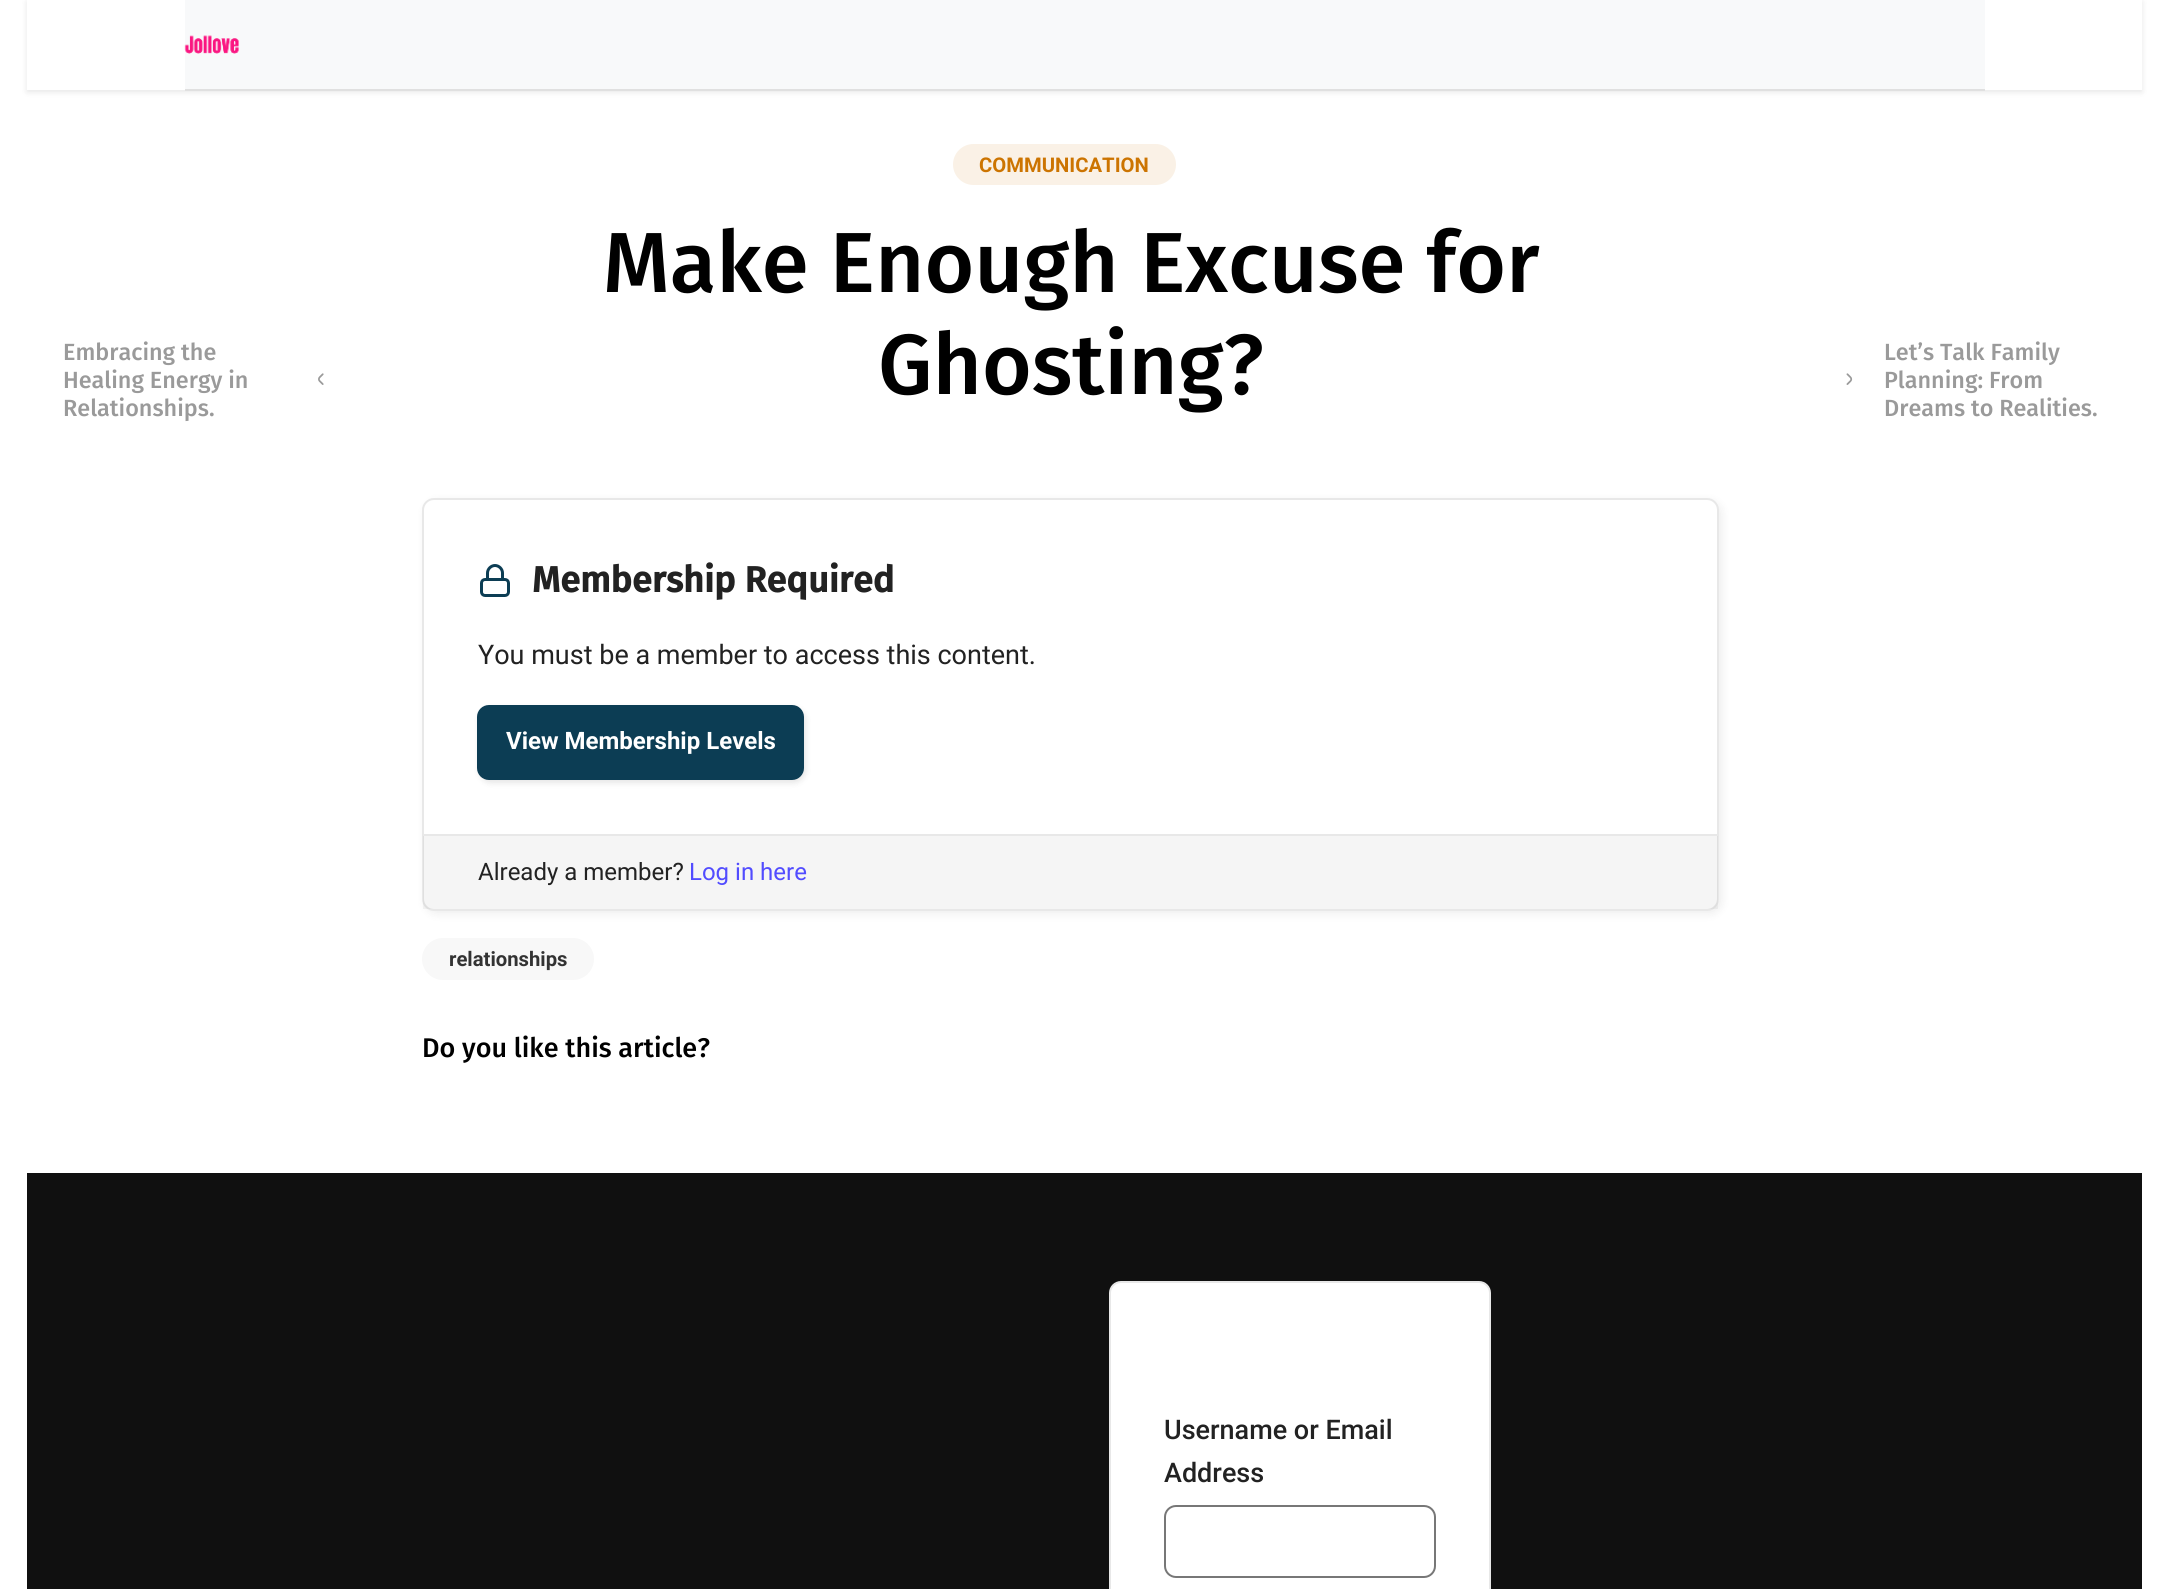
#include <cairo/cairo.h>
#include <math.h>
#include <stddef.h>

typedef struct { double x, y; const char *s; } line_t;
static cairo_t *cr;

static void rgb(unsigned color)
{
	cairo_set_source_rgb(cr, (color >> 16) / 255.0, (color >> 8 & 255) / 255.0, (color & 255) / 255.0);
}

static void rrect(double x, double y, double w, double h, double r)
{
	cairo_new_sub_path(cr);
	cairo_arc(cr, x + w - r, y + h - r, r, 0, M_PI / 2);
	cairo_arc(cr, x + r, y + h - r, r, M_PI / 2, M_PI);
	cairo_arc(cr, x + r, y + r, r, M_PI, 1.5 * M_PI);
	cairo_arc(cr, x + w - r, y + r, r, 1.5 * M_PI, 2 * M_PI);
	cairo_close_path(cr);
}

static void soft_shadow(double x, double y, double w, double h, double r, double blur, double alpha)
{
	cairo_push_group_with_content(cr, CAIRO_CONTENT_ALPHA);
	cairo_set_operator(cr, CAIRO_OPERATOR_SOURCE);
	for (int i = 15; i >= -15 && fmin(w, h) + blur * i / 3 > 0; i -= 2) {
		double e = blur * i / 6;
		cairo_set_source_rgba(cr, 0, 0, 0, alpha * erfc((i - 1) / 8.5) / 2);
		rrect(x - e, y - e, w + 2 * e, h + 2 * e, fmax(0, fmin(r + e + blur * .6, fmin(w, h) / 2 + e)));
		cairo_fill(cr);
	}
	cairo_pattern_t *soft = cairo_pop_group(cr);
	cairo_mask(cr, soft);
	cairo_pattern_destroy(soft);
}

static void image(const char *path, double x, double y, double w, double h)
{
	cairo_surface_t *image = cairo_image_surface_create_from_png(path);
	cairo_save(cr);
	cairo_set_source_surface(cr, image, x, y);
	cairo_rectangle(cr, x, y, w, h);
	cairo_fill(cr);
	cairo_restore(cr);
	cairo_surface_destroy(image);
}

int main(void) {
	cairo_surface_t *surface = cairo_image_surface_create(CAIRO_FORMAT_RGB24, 2169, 1589);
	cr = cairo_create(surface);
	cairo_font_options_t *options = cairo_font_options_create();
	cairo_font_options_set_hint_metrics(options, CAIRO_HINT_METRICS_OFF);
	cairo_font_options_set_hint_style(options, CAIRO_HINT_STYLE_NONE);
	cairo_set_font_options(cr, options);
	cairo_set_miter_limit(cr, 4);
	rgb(0xffffff);
	cairo_paint(cr);
	cairo_save(cr);
	cairo_set_fill_rule(cr, CAIRO_FILL_RULE_EVEN_ODD);
	cairo_new_path(cr);
	cairo_move_to(cr, 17, 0);
	cairo_line_to(cr, 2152, 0);
	cairo_line_to(cr, 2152, 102);
	cairo_line_to(cr, 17, 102);
	cairo_close_path(cr);
	cairo_move_to(cr, 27, 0);
	cairo_line_to(cr, 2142, 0);
	cairo_line_to(cr, 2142, 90);
	cairo_line_to(cr, 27, 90);
	cairo_close_path(cr);
	cairo_clip(cr);
	rgb(0x000000);
	soft_shadow(27, 2, 2115, 90, 0, 3, 0.1);
	cairo_restore(cr);
	rgb(0xf8f9fa);
	cairo_rectangle(cr, 185, 0, 1800, 89);
	cairo_fill(cr);
	rgb(0xe0e0e0);
	cairo_rectangle(cr, 185, 89, 1800, 2);
	cairo_fill(cr);
	image("img/1.png", 184, 35, 55, 19);
	rgb(0xfaf1e6);
	rrect(953, 144, 223, 41, 20.5);
	cairo_fill(cr);
	image("img/2.png", 318, 373, 6, 12);
	image("img/3.png", 1846, 373, 7, 12);
	rgb(0x000000);
	soft_shadow(425, 501, 1297, 413, 12, 5, 0.07);
	rgb(0xffffff);
	rrect(423, 499, 1295, 411, 11);
	cairo_fill_preserve(cr);
	rgb(0xe8e8e8);
	cairo_stroke(cr);
	rrect(481.5, 579.5, 27, 16, 3.5);
	rgb(0x0c3d54);
	cairo_set_line_width(cr, 3);
	cairo_stroke(cr);
	cairo_new_path(cr);
	cairo_move_to(cr, 487.5, 579);
	cairo_line_to(cr, 487.5, 573);
	cairo_curve_to(cr, 487.5, 569, 491, 565.5, 495, 565.5);
	cairo_curve_to(cr, 499, 565.5, 502.5, 569, 502.5, 573);
	cairo_line_to(cr, 502.5, 579);
	cairo_set_line_cap(cr, CAIRO_LINE_CAP_ROUND);
	cairo_set_line_join(cr, CAIRO_LINE_JOIN_ROUND);
	cairo_stroke(cr);
	rgb(0x000000);
	soft_shadow(479, 708, 327, 75, 12, 3, 0.1);
	rgb(0x0c3d54);
	rrect(478, 706, 325, 73, 11);
	cairo_fill_preserve(cr);
	cairo_set_line_width(cr, 2);
	cairo_set_line_cap(cr, CAIRO_LINE_CAP_BUTT);
	cairo_set_line_join(cr, CAIRO_LINE_JOIN_MITER);
	cairo_stroke(cr);
	cairo_set_source_rgba(cr, 0, 0, 0, 0.04);
	cairo_rectangle(cr, 423, 836, 1295, 73);
	cairo_fill(cr);
	rgb(0xe8e8e8);
	cairo_rectangle(cr, 423, 834, 1295, 2);
	cairo_fill(cr);
	rgb(0xf8f8f8);
	rrect(422, 938, 172, 42, 21);
	cairo_fill(cr);
	rgb(0x101010);
	cairo_rectangle(cr, 27, 1173, 2115, 416);
	cairo_fill(cr);
	rgb(0xffffff);
	rrect(1110, 1282, 380, 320, 11);
	cairo_fill_preserve(cr);
	rgb(0xe8e8e8);
	cairo_stroke(cr);
	rrect(1165, 1506, 270, 71, 11);
	rgb(0x777777);
	cairo_stroke(cr);
	cairo_select_font_face(cr, "Roboto", CAIRO_FONT_SLANT_NORMAL, CAIRO_FONT_WEIGHT_BOLD);
	cairo_set_font_size(cr, 20.25);
	rgb(0xcc7401);
	cairo_move_to(cr, 979, 172);
	cairo_show_text(cr, "COMMUNICATION");
	cairo_select_font_face(cr, "Fira Sans Medium", CAIRO_FONT_SLANT_NORMAL, CAIRO_FONT_WEIGHT_NORMAL);
	cairo_set_font_size(cr, 85.25);
	rgb(0x000000);
	cairo_move_to(cr, 603, 292);
	cairo_show_text(cr, "Make Enough Excuse for");
	cairo_move_to(cr, 878, 394);
	cairo_show_text(cr, "Ghosting?");
	cairo_set_font_size(cr, 23.4);
	rgb(0x9a9a9a);
	{
		static const line_t items[] = {
			{63, 360, "Embracing the"},
			{63, 388, "Healing Energy in"},
			{63, 416, "Relationships."},
			{1884, 360, "Let’s Talk Family"},
			{1884, 388, "Planning: From"},
			{1884, 416, "Dreams to Realities."},
		};
		for (size_t i = 0; i < sizeof items / sizeof *items; i++) {
			cairo_move_to(cr, items[i].x, items[i].y);
			cairo_show_text(cr, items[i].s);
		}
	}
	cairo_select_font_face(cr, "Fira Sans", CAIRO_FONT_SLANT_NORMAL, CAIRO_FONT_WEIGHT_BOLD);
	cairo_set_font_size(cr, 36);
	rgb(0x222222);
	cairo_move_to(cr, 532, 592);
	cairo_show_text(cr, "Membership Required");
	cairo_select_font_face(cr, "Roboto", CAIRO_FONT_SLANT_NORMAL, CAIRO_FONT_WEIGHT_NORMAL);
	cairo_set_font_size(cr, 27);
	cairo_move_to(cr, 478, 664);
	cairo_show_text(cr, "You must be a member to access this content.");
	cairo_select_font_face(cr, "Roboto", CAIRO_FONT_SLANT_NORMAL, CAIRO_FONT_WEIGHT_BOLD);
	cairo_set_font_size(cr, 24);
	rgb(0xffffff);
	cairo_move_to(cr, 506, 749);
	cairo_show_text(cr, "View Membership Levels");
	cairo_select_font_face(cr, "Roboto", CAIRO_FONT_SLANT_NORMAL, CAIRO_FONT_WEIGHT_NORMAL);
	rgb(0x222222);
	cairo_move_to(cr, 478, 880);
	cairo_show_text(cr, "Already a member?");
	rgb(0x524cff);
	cairo_move_to(cr, 689, 880);
	cairo_show_text(cr, "Log in here");
	cairo_select_font_face(cr, "Roboto", CAIRO_FONT_SLANT_NORMAL, CAIRO_FONT_WEIGHT_BOLD);
	cairo_set_font_size(cr, 20.25);
	rgb(0x333333);
	cairo_move_to(cr, 449, 966);
	cairo_show_text(cr, "relationships");
	cairo_select_font_face(cr, "Fira Sans Medium", CAIRO_FONT_SLANT_NORMAL, CAIRO_FONT_WEIGHT_NORMAL);
	cairo_set_font_size(cr, 27);
	rgb(0x000000);
	cairo_move_to(cr, 422, 1057);
	cairo_show_text(cr, "Do you like this article?");
	cairo_select_font_face(cr, "Roboto Medium", CAIRO_FONT_SLANT_NORMAL, CAIRO_FONT_WEIGHT_NORMAL);
	rgb(0x222222);
	cairo_move_to(cr, 1164, 1439);
	cairo_show_text(cr, "Username or Email");
	cairo_move_to(cr, 1164, 1482);
	cairo_show_text(cr, "Address");
	cairo_surface_write_to_png(surface, "page.png");
	cairo_font_options_destroy(options);
	cairo_destroy(cr);
	cairo_surface_destroy(surface);
	return 0;
}
